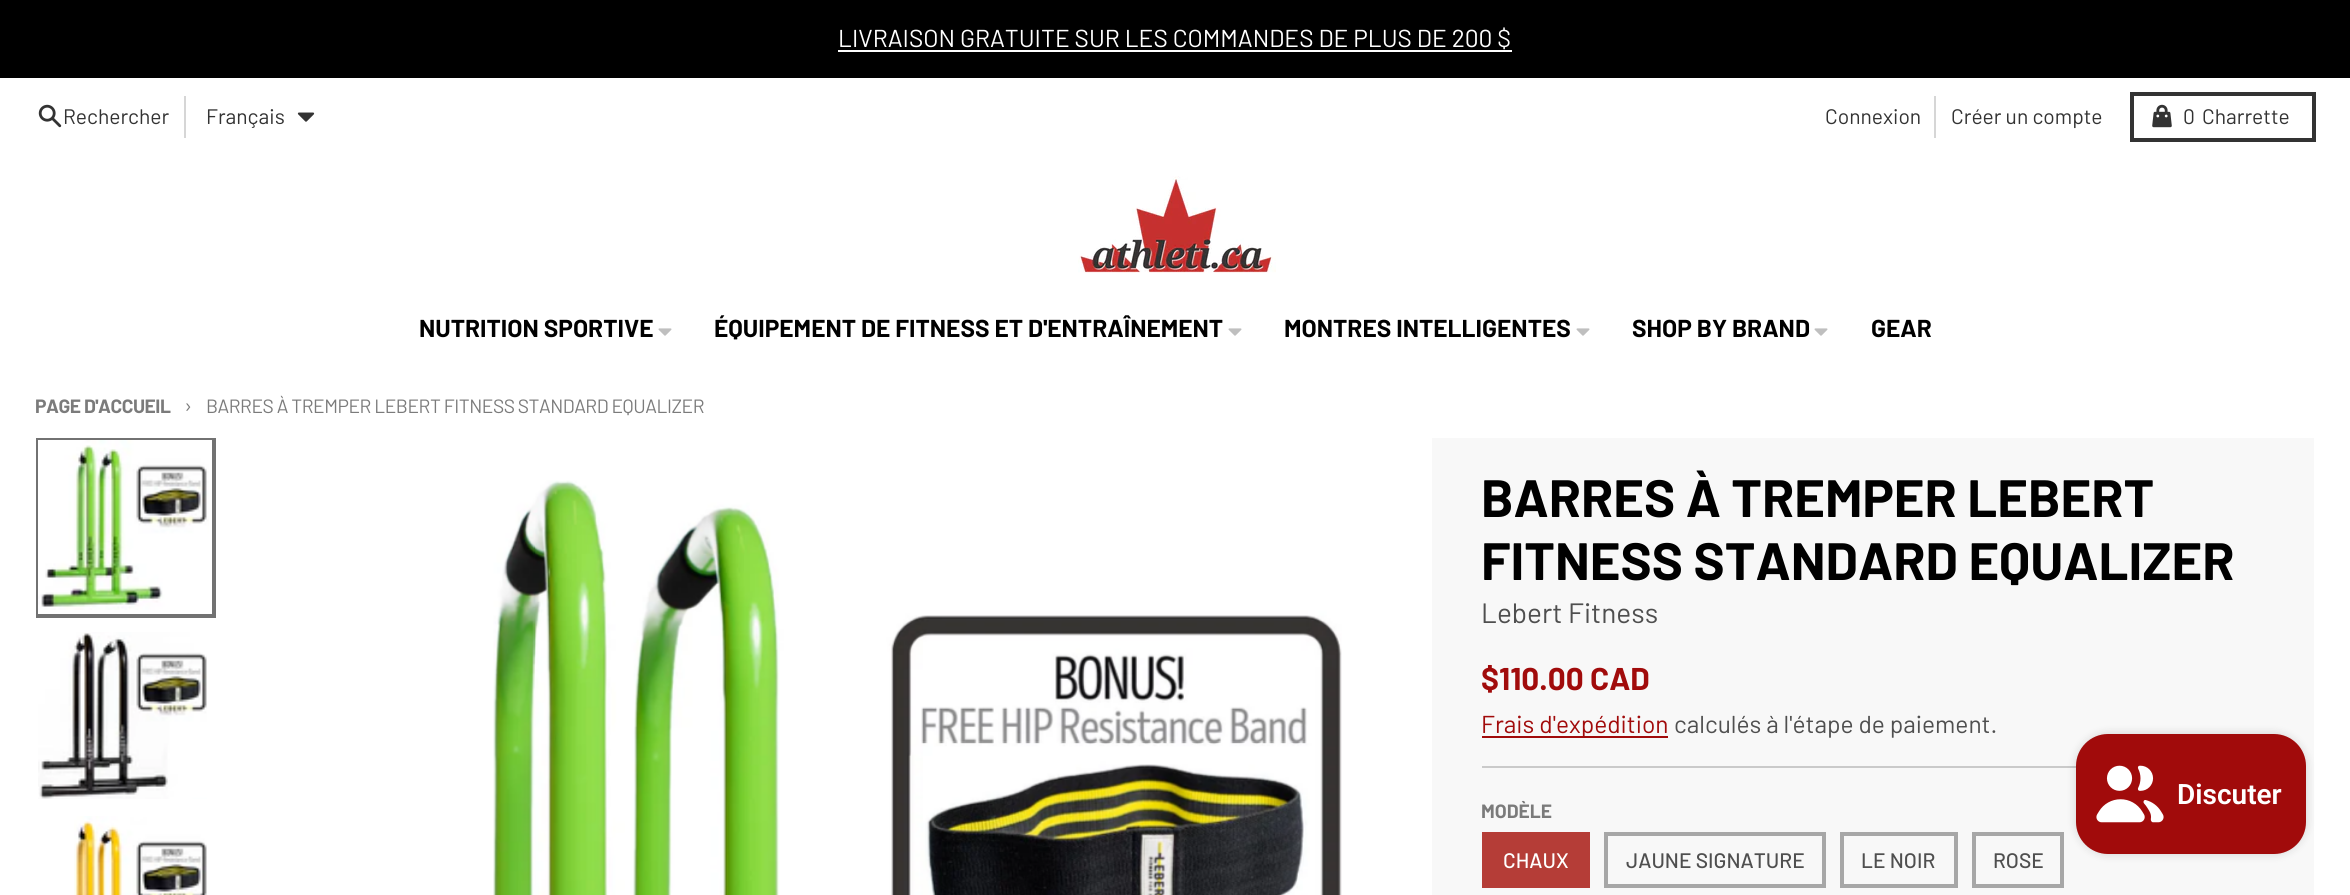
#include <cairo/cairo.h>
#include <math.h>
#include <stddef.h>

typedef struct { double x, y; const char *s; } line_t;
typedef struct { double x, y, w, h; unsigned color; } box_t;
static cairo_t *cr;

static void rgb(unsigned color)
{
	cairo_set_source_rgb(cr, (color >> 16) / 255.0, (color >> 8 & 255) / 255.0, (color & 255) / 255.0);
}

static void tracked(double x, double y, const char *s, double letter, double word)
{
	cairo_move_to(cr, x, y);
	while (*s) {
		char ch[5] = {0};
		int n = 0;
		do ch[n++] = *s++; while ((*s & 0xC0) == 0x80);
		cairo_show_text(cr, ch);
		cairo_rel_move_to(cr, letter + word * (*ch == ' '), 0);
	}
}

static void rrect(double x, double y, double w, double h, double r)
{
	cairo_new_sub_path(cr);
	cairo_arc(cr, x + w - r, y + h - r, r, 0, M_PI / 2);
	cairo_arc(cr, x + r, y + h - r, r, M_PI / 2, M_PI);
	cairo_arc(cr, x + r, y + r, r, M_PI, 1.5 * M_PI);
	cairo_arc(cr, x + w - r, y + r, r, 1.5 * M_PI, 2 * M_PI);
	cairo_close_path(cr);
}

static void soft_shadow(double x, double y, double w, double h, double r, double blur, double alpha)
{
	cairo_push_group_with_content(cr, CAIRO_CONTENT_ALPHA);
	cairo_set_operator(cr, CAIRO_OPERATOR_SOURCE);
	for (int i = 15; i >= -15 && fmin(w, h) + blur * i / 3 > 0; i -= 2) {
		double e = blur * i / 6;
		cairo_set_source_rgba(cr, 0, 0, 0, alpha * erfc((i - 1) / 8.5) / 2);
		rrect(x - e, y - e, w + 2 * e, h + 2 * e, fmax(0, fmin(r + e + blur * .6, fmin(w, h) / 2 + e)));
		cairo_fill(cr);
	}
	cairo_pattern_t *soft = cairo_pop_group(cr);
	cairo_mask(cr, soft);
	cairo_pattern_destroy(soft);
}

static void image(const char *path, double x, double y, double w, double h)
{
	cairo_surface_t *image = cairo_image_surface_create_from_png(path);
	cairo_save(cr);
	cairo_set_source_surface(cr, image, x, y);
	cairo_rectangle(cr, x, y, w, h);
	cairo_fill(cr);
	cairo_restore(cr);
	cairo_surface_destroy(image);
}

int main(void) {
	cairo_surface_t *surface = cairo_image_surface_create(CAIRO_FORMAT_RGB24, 2350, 895);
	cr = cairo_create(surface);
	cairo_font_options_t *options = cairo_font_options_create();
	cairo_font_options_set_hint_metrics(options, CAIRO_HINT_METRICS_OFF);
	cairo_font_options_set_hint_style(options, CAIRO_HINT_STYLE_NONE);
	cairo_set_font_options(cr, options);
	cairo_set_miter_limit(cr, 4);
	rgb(0xffffff);
	cairo_paint(cr);
	rgb(0x000000);
	cairo_rectangle(cr, 0, 0, 2350, 78);
	cairo_fill(cr);
	rgb(0xffffff);
	cairo_rectangle(cr, 838, 50, 674, 2);
	cairo_fill(cr);
	image("img/1.png", 38, 104, 24, 24);
	rgb(0xd6d6d6);
	cairo_rectangle(cr, 184, 96, 2, 42);
	cairo_fill(cr);
	image("img/2.png", 297, 112, 18, 10);
	cairo_rectangle(cr, 1934, 96, 2, 42);
	cairo_fill(cr);
	cairo_rectangle(cr, 2132, 94, 182, 46);
	rgb(0x333333);
	cairo_set_line_width(cr, 4);
	cairo_stroke(cr);
	image("img/3.png", 2152, 104, 20, 24);
	image("img/4.png", 1078, 176, 198, 97);
	image("img/5.png", 658, 328, 14, 8);
	image("img/5.png", 1228, 328, 14, 8);
	image("img/5.png", 1576, 328, 14, 8);
	image("img/5.png", 1814, 328, 14, 8);
	cairo_save(cr);
	cairo_rectangle(cr, 36, 438, 180, 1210);
	cairo_clip(cr);
	cairo_rectangle(cr, 36, 438, 178, 178);
	rgb(0x727272);
	cairo_stroke(cr);
	cairo_restore(cr);
	image("img/6.png", 38, 440, 171, 170);
	image("img/7.png", 38, 632, 169, 167);
	image("img/8.png", 74, 816, 133, 79);
	image("img/9.png", 493, 480, 849, 415);
	{
		static const box_t items[] = {
			{1432, 438, 882, 457, 0xf8f8f8},
			{1482, 736, 186, 2, 0xa10b0b},
			{1482, 766, 594, 2, 0xcacaca},
			{1482, 832, 108, 56, 0xb53d37},
		};
		for (size_t i = 0; i < sizeof items / sizeof *items; i++) {
			rgb(items[i].color);
			cairo_rectangle(cr, items[i].x, items[i].y, items[i].w, items[i].h);
			cairo_fill(cr);
		}
	}
	cairo_rectangle(cr, 1606, 834, 218, 52);
	rgb(0xa7a7a7);
	cairo_stroke(cr);
	cairo_rectangle(cr, 1842, 834, 114, 52);
	cairo_stroke(cr);
	cairo_rectangle(cr, 1974, 834, 88, 52);
	cairo_stroke(cr);
	rgb(0x000000);
	soft_shadow(2076, 734, 230, 120, 32, 5, 0.15);
	rgb(0xa10b0b);
	rrect(2076, 734, 230, 120, 32);
	cairo_fill(cr);
	image("img/10.png", 2096, 765, 68, 58);
	cairo_select_font_face(cr, "Barlow", CAIRO_FONT_SLANT_NORMAL, CAIRO_FONT_WEIGHT_NORMAL);
	cairo_set_font_size(cr, 24.5);
	rgb(0xffffff);
	cairo_move_to(cr, 838, 47);
	cairo_show_text(cr, "LIVRAISON GRATUITE SUR LES COMMANDES DE PLUS DE 200 $");
	cairo_set_font_size(cr, 21);
	rgb(0x333333);
	{
		static const line_t items[] = {
			{63, 124, "Rechercher"},
			{206, 124, "Français"},
			{1825, 124, "Connexion"},
			{1951, 124, "Créer un compte"},
			{2183, 124, "0"},
			{2202, 124, "Charrette"},
		};
		for (size_t i = 0; i < sizeof items / sizeof *items; i++) {
			cairo_move_to(cr, items[i].x, items[i].y);
			cairo_show_text(cr, items[i].s);
		}
	}
	cairo_select_font_face(cr, "Barlow", CAIRO_FONT_SLANT_NORMAL, CAIRO_FONT_WEIGHT_BOLD);
	cairo_set_font_size(cr, 24.5);
	rgb(0x000000);
	{
		static const line_t items[] = {
			{419, 337, "NUTRITION SPORTIVE"},
			{714, 337, "ÉQUIPEMENT DE FITNESS ET D'ENTRAÎNEMENT"},
			{1284, 337, "MONTRES INTELLIGENTES"},
			{1632, 337, "SHOP BY BRAND"},
			{1871, 337, "GEAR"},
		};
		for (size_t i = 0; i < sizeof items / sizeof *items; i++) {
			cairo_move_to(cr, items[i].x, items[i].y);
			cairo_show_text(cr, items[i].s);
		}
	}
	cairo_set_font_size(cr, 19.25);
	rgb(0x7b7b7b);
	tracked(35, 413, "PAGE D'ACCUEIL", -0.48, 0);
	cairo_select_font_face(cr, "Barlow", CAIRO_FONT_SLANT_NORMAL, CAIRO_FONT_WEIGHT_NORMAL);
	cairo_set_font_size(cr, 21);
	tracked(184, 413, "›", -0.48, 0);
	cairo_set_font_size(cr, 19.25);
	tracked(206, 413, "BARRES À TREMPER LEBERT FITNESS STANDARD EQUALIZER", -0.48, 0);
	cairo_select_font_face(cr, "Barlow", CAIRO_FONT_SLANT_NORMAL, CAIRO_FONT_WEIGHT_BOLD);
	cairo_set_font_size(cr, 52.5);
	rgb(0x000000);
	cairo_move_to(cr, 1481, 517);
	cairo_show_text(cr, "BARRES À TREMPER LEBERT");
	cairo_move_to(cr, 1481, 580);
	cairo_show_text(cr, "FITNESS STANDARD EQUALIZER");
	cairo_select_font_face(cr, "Barlow", CAIRO_FONT_SLANT_NORMAL, CAIRO_FONT_WEIGHT_NORMAL);
	cairo_set_font_size(cr, 28);
	rgb(0x4f4f4f);
	cairo_move_to(cr, 1481, 623);
	cairo_show_text(cr, "Lebert Fitness");
	cairo_select_font_face(cr, "Barlow", CAIRO_FONT_SLANT_NORMAL, CAIRO_FONT_WEIGHT_BOLD);
	cairo_set_font_size(cr, 31.5);
	rgb(0xa10b0b);
	cairo_move_to(cr, 1481, 690);
	cairo_show_text(cr, "$110.00 CAD");
	cairo_select_font_face(cr, "Barlow", CAIRO_FONT_SLANT_NORMAL, CAIRO_FONT_WEIGHT_NORMAL);
	cairo_set_font_size(cr, 24.5);
	cairo_move_to(cr, 1481, 733);
	cairo_show_text(cr, "Frais d'expédition");
	rgb(0x4f4f4f);
	cairo_move_to(cr, 1674, 733);
	cairo_show_text(cr, "calculés à l'étape de paiement.");
	cairo_select_font_face(cr, "Barlow", CAIRO_FONT_SLANT_NORMAL, CAIRO_FONT_WEIGHT_BOLD);
	cairo_set_font_size(cr, 19.25);
	rgb(0x7b7b7b);
	cairo_move_to(cr, 1481, 818);
	cairo_show_text(cr, "MODÈLE");
	cairo_select_font_face(cr, "Barlow Medium", CAIRO_FONT_SLANT_NORMAL, CAIRO_FONT_WEIGHT_NORMAL);
	cairo_set_font_size(cr, 21);
	rgb(0xffffff);
	cairo_move_to(cr, 1503, 868);
	cairo_show_text(cr, "CHAUX");
	rgb(0x4f4f4f);
	{
		static const line_t items[] = {
			{1626, 868, "JAUNE SIGNATURE"},
			{1861, 868, "LE NOIR"},
			{1993, 868, "ROSE"},
		};
		for (size_t i = 0; i < sizeof items / sizeof *items; i++) {
			cairo_move_to(cr, items[i].x, items[i].y);
			cairo_show_text(cr, items[i].s);
		}
	}
	cairo_select_font_face(cr, "Roboto SemiBold", CAIRO_FONT_SLANT_NORMAL, CAIRO_FONT_WEIGHT_NORMAL);
	cairo_set_font_size(cr, 28);
	rgb(0xffffff);
	cairo_move_to(cr, 2177, 804);
	cairo_show_text(cr, "Discuter");
	cairo_surface_write_to_png(surface, "page.png");
	cairo_font_options_destroy(options);
	cairo_destroy(cr);
	cairo_surface_destroy(surface);
	return 0;
}
